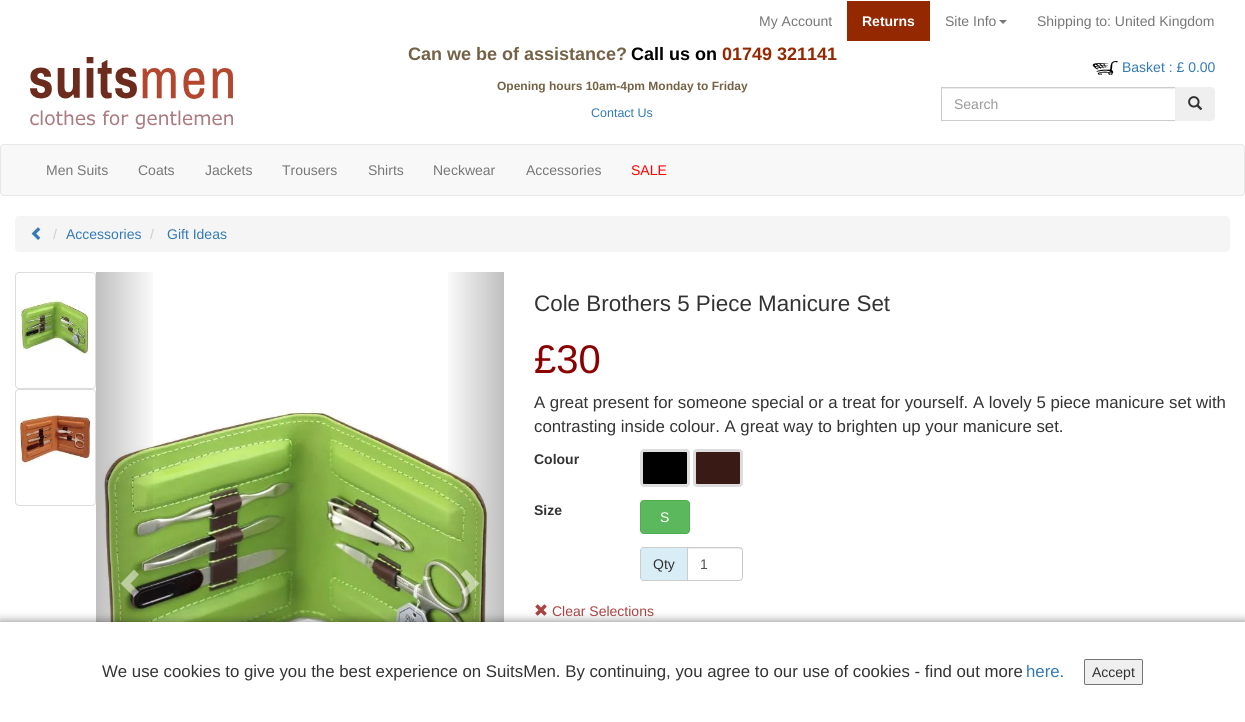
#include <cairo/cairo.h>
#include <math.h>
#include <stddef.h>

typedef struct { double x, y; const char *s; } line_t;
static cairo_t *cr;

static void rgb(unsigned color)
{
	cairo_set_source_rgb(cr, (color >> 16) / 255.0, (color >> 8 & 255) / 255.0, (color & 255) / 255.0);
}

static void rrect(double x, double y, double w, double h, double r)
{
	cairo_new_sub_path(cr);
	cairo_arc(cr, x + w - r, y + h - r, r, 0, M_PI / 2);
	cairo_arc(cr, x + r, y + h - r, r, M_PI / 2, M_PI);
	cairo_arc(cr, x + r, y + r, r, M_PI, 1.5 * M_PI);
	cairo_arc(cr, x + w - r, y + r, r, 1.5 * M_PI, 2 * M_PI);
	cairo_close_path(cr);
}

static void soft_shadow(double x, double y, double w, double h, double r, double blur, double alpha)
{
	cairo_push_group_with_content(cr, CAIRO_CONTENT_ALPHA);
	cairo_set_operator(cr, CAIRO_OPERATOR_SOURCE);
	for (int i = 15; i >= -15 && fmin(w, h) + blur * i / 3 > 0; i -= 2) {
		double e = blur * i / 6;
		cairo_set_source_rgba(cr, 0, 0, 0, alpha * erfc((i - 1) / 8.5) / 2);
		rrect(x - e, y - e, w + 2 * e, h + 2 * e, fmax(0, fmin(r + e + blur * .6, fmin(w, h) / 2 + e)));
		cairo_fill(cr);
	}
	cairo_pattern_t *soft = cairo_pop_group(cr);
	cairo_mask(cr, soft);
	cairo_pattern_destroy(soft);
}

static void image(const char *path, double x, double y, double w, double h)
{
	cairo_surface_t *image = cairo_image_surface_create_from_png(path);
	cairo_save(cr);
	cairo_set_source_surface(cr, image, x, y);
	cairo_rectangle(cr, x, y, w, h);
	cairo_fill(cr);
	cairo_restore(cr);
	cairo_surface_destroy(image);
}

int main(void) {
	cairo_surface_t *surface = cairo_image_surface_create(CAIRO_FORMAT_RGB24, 1245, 722);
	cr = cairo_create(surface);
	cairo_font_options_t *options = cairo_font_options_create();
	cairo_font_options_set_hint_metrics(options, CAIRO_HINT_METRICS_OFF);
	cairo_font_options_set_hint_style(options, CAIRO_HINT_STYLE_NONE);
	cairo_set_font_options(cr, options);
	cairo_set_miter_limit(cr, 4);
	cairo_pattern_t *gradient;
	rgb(0xffffff);
	cairo_paint(cr);
	rgb(0x942800);
	cairo_rectangle(cr, 847, 1, 83, 40);
	cairo_fill(cr);
	rgb(0x777777);
	cairo_new_path(cr);
	cairo_move_to(cr, 999, 20);
	cairo_line_to(cr, 1007, 20);
	cairo_line_to(cr, 1003, 24);
	cairo_close_path(cr);
	cairo_fill(cr);
	image("img/1.png", 30, 57, 203, 72);
	image("img/2.png", 1092, 61, 26, 14);
	rgb(0xececec);
	cairo_rectangle(cr, 942, 88, 233, 1);
	cairo_fill(cr);
	cairo_rectangle(cr, 941.5, 87.5, 234, 33);
	rgb(0xcccccc);
	cairo_set_line_width(cr, 1);
	cairo_stroke(cr);
	rgb(0xefefef);
	cairo_new_path(cr);
	cairo_move_to(cr, 1175, 87);
	cairo_line_to(cr, 1211, 87);
	cairo_curve_to(cr, 1213, 87, 1215, 89, 1215, 91);
	cairo_line_to(cr, 1215, 117);
	cairo_curve_to(cr, 1215, 119, 1213, 121, 1211, 121);
	cairo_line_to(cr, 1175, 121);
	cairo_close_path(cr);
	cairo_fill(cr);
	image("img/3.png", 1188, 96, 15, 14);
	rgb(0xf8f8f8);
	rrect(0.5, 144.5, 1244, 51, 3.5);
	cairo_fill_preserve(cr);
	rgb(0xe7e7e7);
	cairo_stroke(cr);
	rgb(0xf5f5f5);
	rrect(15, 216, 1215, 36, 4);
	cairo_fill(cr);
	image("img/4.png", 31, 227, 10, 13);
	rrect(15.5, 272.5, 80, 116, 3.5);
	rgb(0xdddddd);
	cairo_stroke(cr);
	image("img/5.png", 20, 300, 71, 55);
	rrect(15.5, 389.5, 80, 116, 3.5);
	cairo_stroke(cr);
	image("img/6.png", 20, 412, 71, 54);
	image("img/7.png", 96, 408, 393, 214);
	gradient = cairo_pattern_create_linear(96, 578, 158, 578);
	cairo_pattern_add_color_stop_rgba(gradient, 0, 0, 0, 0, 0.25);
	cairo_pattern_add_color_stop_rgba(gradient, 1, 0, 0, 0, 0);
	cairo_set_source(cr, gradient);
	cairo_pattern_destroy(gradient);
	cairo_rectangle(cr, 96, 272, 57, 350);
	cairo_fill(cr);
	cairo_set_source_rgba(cr, 1, 1, 1, 0.5);
	cairo_new_path(cr);
	cairo_move_to(cr, 139, 574.5);
	cairo_line_to(cr, 130.5, 583.5);
	cairo_line_to(cr, 139, 592);
	cairo_line_to(cr, 134, 597);
	cairo_line_to(cr, 120.5, 583.5);
	cairo_line_to(cr, 134, 569.5);
	cairo_close_path(cr);
	cairo_fill(cr);
	gradient = cairo_pattern_create_linear(443, 578, 504, 578);
	cairo_pattern_add_color_stop_rgba(gradient, 0, 0, 0, 0, 0);
	cairo_pattern_add_color_stop_rgba(gradient, 1, 0, 0, 0, 0.25);
	cairo_set_source(cr, gradient);
	cairo_pattern_destroy(gradient);
	cairo_rectangle(cr, 448, 272, 56, 350);
	cairo_fill(cr);
	cairo_set_source_rgba(cr, 1, 1, 1, 0.5);
	cairo_new_path(cr);
	cairo_move_to(cr, 479.5, 583.5);
	cairo_line_to(cr, 466, 597);
	cairo_line_to(cr, 461, 592);
	cairo_line_to(cr, 469.5, 583.5);
	cairo_line_to(cr, 461, 574.5);
	cairo_line_to(cr, 466, 569.5);
	cairo_close_path(cr);
	cairo_fill(cr);
	rgb(0x000000);
	rrect(641.5, 450.5, 47, 35, 2.5);
	cairo_fill_preserve(cr);
	rgb(0xdddddd);
	cairo_set_line_width(cr, 3);
	cairo_stroke(cr);
	rgb(0x3a1a15);
	rrect(694.5, 450.5, 47, 35, 2.5);
	cairo_fill_preserve(cr);
	rgb(0xdddddd);
	cairo_stroke(cr);
	rgb(0x5cb85c);
	rrect(640.5, 500.5, 49, 33, 3.5);
	cairo_fill_preserve(cr);
	rgb(0x4cae4c);
	cairo_set_line_width(cr, 1);
	cairo_stroke(cr);
	rgb(0xd9edf7);
	cairo_new_path(cr);
	cairo_move_to(cr, 644, 547);
	cairo_line_to(cr, 687, 547);
	cairo_line_to(cr, 687, 581);
	cairo_line_to(cr, 644, 581);
	cairo_curve_to(cr, 642, 581, 640, 579, 640, 577);
	cairo_line_to(cr, 640, 551);
	cairo_curve_to(cr, 640, 549, 642, 547, 644, 547);
	cairo_close_path(cr);
	cairo_fill(cr);
	rgb(0xcccccc);
	cairo_set_fill_rule(cr, CAIRO_FILL_RULE_EVEN_ODD);
	cairo_new_path(cr);
	cairo_move_to(cr, 644, 547);
	cairo_line_to(cr, 687, 547);
	cairo_line_to(cr, 687, 581);
	cairo_line_to(cr, 644, 581);
	cairo_curve_to(cr, 642, 581, 640, 579, 640, 577);
	cairo_line_to(cr, 640, 551);
	cairo_curve_to(cr, 640, 549, 642, 547, 644, 547);
	cairo_close_path(cr);
	cairo_move_to(cr, 644, 548);
	cairo_line_to(cr, 687, 548);
	cairo_line_to(cr, 687, 580);
	cairo_line_to(cr, 644, 580);
	cairo_curve_to(cr, 642, 580, 641, 579, 641, 577);
	cairo_line_to(cr, 641, 551);
	cairo_curve_to(cr, 641, 549, 642, 548, 644, 548);
	cairo_close_path(cr);
	cairo_fill(cr);
	rgb(0xececec);
	cairo_set_fill_rule(cr, CAIRO_FILL_RULE_WINDING);
	cairo_new_path(cr);
	cairo_move_to(cr, 688, 549);
	cairo_line_to(cr, 739, 549);
	cairo_curve_to(cr, 740, 550, 742, 550, 742, 551);
	cairo_curve_to(cr, 742, 549, 741, 548, 739, 548);
	cairo_line_to(cr, 688, 548);
	cairo_close_path(cr);
	cairo_fill(cr);
	cairo_new_path(cr);
	cairo_move_to(cr, 687.5, 547.5);
	cairo_line_to(cr, 739, 547.5);
	cairo_curve_to(cr, 741, 547.5, 742.5, 549, 742.5, 551);
	cairo_line_to(cr, 742.5, 577);
	cairo_curve_to(cr, 742.5, 579, 741, 580.5, 739, 580.5);
	cairo_line_to(cr, 687.5, 580.5);
	cairo_close_path(cr);
	rgb(0xcccccc);
	cairo_stroke(cr);
	image("img/8.png", 535, 604, 12, 12);
	rgb(0x000000);
	soft_shadow(0, 622, 1245, 100, 0, 5, 0.5);
	rgb(0xffffff);
	cairo_rectangle(cr, 0, 622, 1245, 100);
	cairo_fill(cr);
	rgb(0xefefef);
	rrect(1084.5, 659.5, 58, 25, 1.5);
	cairo_fill_preserve(cr);
	rgb(0x767676);
	cairo_stroke(cr);
	cairo_select_font_face(cr, "Liberation Sans", CAIRO_FONT_SLANT_NORMAL, CAIRO_FONT_WEIGHT_NORMAL);
	cairo_set_font_size(cr, 14);
	rgb(0x777777);
	cairo_move_to(cr, 759, 26);
	cairo_show_text(cr, "My Account");
	cairo_select_font_face(cr, "Liberation Sans", CAIRO_FONT_SLANT_NORMAL, CAIRO_FONT_WEIGHT_BOLD);
	rgb(0xffffff);
	cairo_move_to(cr, 862, 26);
	cairo_show_text(cr, "Returns");
	cairo_select_font_face(cr, "Liberation Sans", CAIRO_FONT_SLANT_NORMAL, CAIRO_FONT_WEIGHT_NORMAL);
	rgb(0x777777);
	cairo_move_to(cr, 945, 26);
	cairo_show_text(cr, "Site Info");
	cairo_move_to(cr, 1037, 26);
	cairo_show_text(cr, "Shipping to: United Kingdom");
	cairo_select_font_face(cr, "Liberation Sans", CAIRO_FONT_SLANT_NORMAL, CAIRO_FONT_WEIGHT_BOLD);
	cairo_set_font_size(cr, 18);
	rgb(0x736246);
	cairo_move_to(cr, 408, 60);
	cairo_show_text(cr, "Can we be of assistance?");
	rgb(0x000000);
	cairo_move_to(cr, 631, 60);
	cairo_show_text(cr, "Call us on");
	rgb(0x942800);
	cairo_move_to(cr, 722, 60);
	cairo_show_text(cr, "01749 321141");
	cairo_set_font_size(cr, 12);
	rgb(0x736246);
	cairo_move_to(cr, 497, 90);
	cairo_show_text(cr, "Opening hours 10am-4pm Monday to Friday");
	cairo_select_font_face(cr, "Liberation Sans", CAIRO_FONT_SLANT_NORMAL, CAIRO_FONT_WEIGHT_NORMAL);
	cairo_set_font_size(cr, 12.5);
	rgb(0x337ab7);
	cairo_move_to(cr, 591, 117);
	cairo_show_text(cr, "Contact Us");
	cairo_set_font_size(cr, 14);
	cairo_move_to(cr, 1122, 72);
	cairo_show_text(cr, "Basket : £ 0.00");
	rgb(0x999999);
	cairo_move_to(cr, 954, 109);
	cairo_show_text(cr, "Search");
	rgb(0x777777);
	{
		static const line_t items[] = {
			{46, 175, "Men Suits"},
			{138, 175, "Coats"},
			{205, 175, "Jackets"},
			{282, 175, "Trousers"},
			{368, 175, "Shirts"},
			{433, 175, "Neckwear"},
			{526, 175, "Accessories"},
		};
		for (size_t i = 0; i < sizeof items / sizeof *items; i++) {
			cairo_move_to(cr, items[i].x, items[i].y);
			cairo_show_text(cr, items[i].s);
		}
	}
	rgb(0xff0000);
	cairo_move_to(cr, 631, 175);
	cairo_show_text(cr, "SALE");
	rgb(0xcccccc);
	cairo_move_to(cr, 53, 239);
	cairo_show_text(cr, "/");
	rgb(0x337ab7);
	cairo_move_to(cr, 66, 239);
	cairo_show_text(cr, "Accessories");
	rgb(0xcccccc);
	cairo_move_to(cr, 150, 239);
	cairo_show_text(cr, "/");
	rgb(0x337ab7);
	cairo_move_to(cr, 167, 239);
	cairo_show_text(cr, "Gift Ideas");
	cairo_set_font_size(cr, 22.4);
	rgb(0x333333);
	cairo_move_to(cr, 534, 311);
	cairo_show_text(cr, "Cole Brothers 5 Piece Manicure Set");
	cairo_set_font_size(cr, 40);
	rgb(0x8b0000);
	cairo_move_to(cr, 534, 373);
	cairo_show_text(cr, "£30");
	cairo_set_font_size(cr, 16.8);
	rgb(0x333333);
	cairo_move_to(cr, 534, 408);
	cairo_show_text(cr, "A great present for someone special or a treat for yourself. A lovely 5 piece manicure set with");
	cairo_move_to(cr, 534, 432);
	cairo_show_text(cr, "contrasting inside colour. A great way to brighten up your manicure set.");
	cairo_select_font_face(cr, "Liberation Sans", CAIRO_FONT_SLANT_NORMAL, CAIRO_FONT_WEIGHT_BOLD);
	cairo_set_font_size(cr, 14);
	cairo_move_to(cr, 534, 464);
	cairo_show_text(cr, "Colour");
	cairo_move_to(cr, 534, 515);
	cairo_show_text(cr, "Size");
	cairo_select_font_face(cr, "Liberation Sans", CAIRO_FONT_SLANT_NORMAL, CAIRO_FONT_WEIGHT_NORMAL);
	rgb(0xffffff);
	cairo_move_to(cr, 660, 522);
	cairo_show_text(cr, "S");
	rgb(0x333333);
	cairo_move_to(cr, 653, 569);
	cairo_show_text(cr, "Qty");
	rgb(0x555555);
	cairo_move_to(cr, 700, 569);
	cairo_show_text(cr, "1");
	rgb(0xa94442);
	cairo_move_to(cr, 552, 616);
	cairo_show_text(cr, "Clear Selections");
	cairo_set_font_size(cr, 16.8);
	rgb(0x333333);
	cairo_move_to(cr, 102, 677);
	cairo_show_text(cr, "We use cookies to give you the best experience on SuitsMen. By continuing, you agree to our use of cookies - find out more");
	rgb(0x337ab7);
	cairo_move_to(cr, 1026, 677);
	cairo_show_text(cr, "here.");
	cairo_set_font_size(cr, 14);
	rgb(0x333333);
	cairo_move_to(cr, 1092, 677);
	cairo_show_text(cr, "Accept");
	cairo_surface_write_to_png(surface, "page.png");
	cairo_font_options_destroy(options);
	cairo_destroy(cr);
	cairo_surface_destroy(surface);
	return 0;
}
